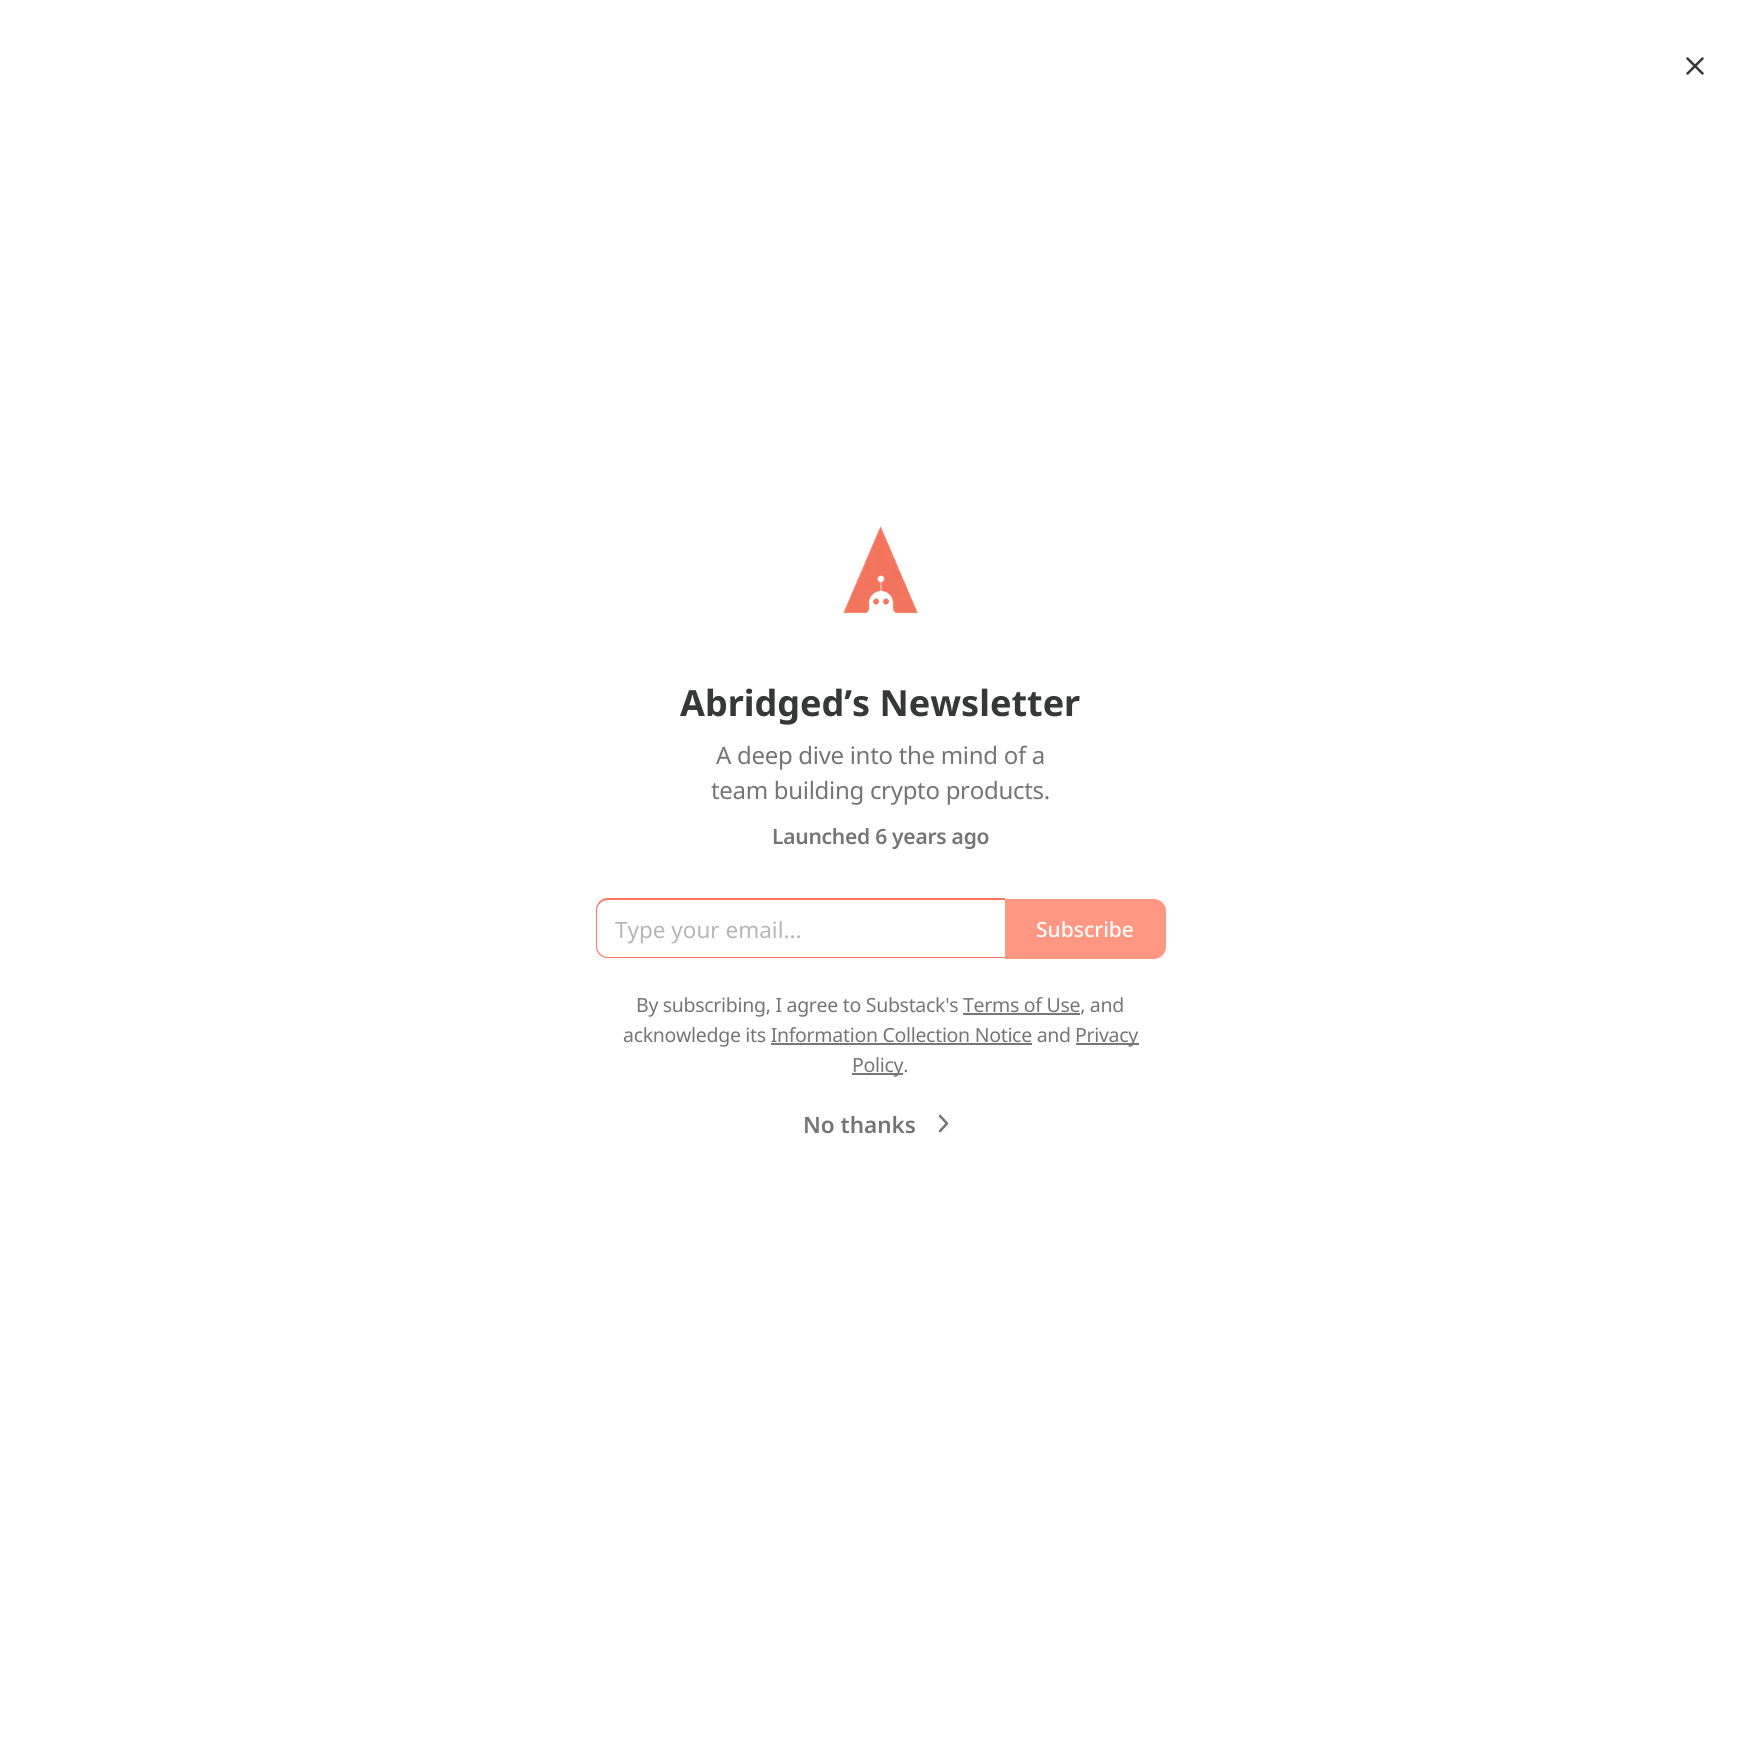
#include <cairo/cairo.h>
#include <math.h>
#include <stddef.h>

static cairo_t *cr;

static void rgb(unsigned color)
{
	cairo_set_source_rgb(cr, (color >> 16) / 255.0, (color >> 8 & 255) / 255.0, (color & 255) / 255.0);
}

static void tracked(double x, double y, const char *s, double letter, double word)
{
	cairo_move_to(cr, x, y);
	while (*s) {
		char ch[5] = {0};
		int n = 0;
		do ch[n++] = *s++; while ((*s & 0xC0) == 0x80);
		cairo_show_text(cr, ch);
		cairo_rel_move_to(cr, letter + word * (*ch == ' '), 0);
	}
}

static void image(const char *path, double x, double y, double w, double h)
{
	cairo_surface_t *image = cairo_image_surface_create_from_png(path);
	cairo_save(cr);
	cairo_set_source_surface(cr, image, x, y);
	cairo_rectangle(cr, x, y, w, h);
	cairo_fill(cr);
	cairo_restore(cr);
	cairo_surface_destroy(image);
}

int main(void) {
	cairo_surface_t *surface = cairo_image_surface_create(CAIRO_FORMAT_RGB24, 1761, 1745);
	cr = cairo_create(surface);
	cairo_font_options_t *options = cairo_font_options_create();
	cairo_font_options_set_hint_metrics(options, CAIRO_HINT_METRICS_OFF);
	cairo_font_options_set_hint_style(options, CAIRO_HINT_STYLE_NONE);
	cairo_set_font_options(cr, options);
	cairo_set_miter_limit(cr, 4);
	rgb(0xffffff);
	cairo_paint(cr);
	cairo_new_path(cr);
	cairo_move_to(cr, 1702.5, 58.5);
	cairo_line_to(cr, 1687.5, 73.5);
	cairo_move_to(cr, 1687.5, 58.5);
	cairo_line_to(cr, 1702.5, 73.5);
	rgb(0x363737);
	cairo_set_line_width(cr, 2.5);
	cairo_set_line_cap(cr, CAIRO_LINE_CAP_ROUND);
	cairo_set_line_join(cr, CAIRO_LINE_JOIN_ROUND);
	cairo_stroke(cr);
	image("img/1.png", 843, 526, 75, 88);
	rgb(0xff745a);
	cairo_set_fill_rule(cr, CAIRO_FILL_RULE_EVEN_ODD);
	cairo_new_path(cr);
	cairo_move_to(cr, 608, 898);
	cairo_line_to(cr, 1005, 898);
	cairo_line_to(cr, 1005, 958);
	cairo_line_to(cr, 608, 958);
	cairo_curve_to(cr, 601, 958, 596, 953, 596, 946);
	cairo_line_to(cr, 596, 910);
	cairo_curve_to(cr, 596, 904, 601, 898, 608, 898);
	cairo_close_path(cr);
	cairo_move_to(cr, 608, 900);
	cairo_line_to(cr, 1005, 900);
	cairo_line_to(cr, 1005, 957);
	cairo_line_to(cr, 608, 957);
	cairo_curve_to(cr, 602, 957, 597, 952, 597, 946);
	cairo_line_to(cr, 597, 910);
	cairo_curve_to(cr, 597, 905, 602, 900, 608, 900);
	cairo_close_path(cr);
	cairo_fill(cr);
	rgb(0xff9783);
	cairo_new_path(cr);
	cairo_move_to(cr, 1006, 900);
	cairo_line_to(cr, 1154, 900);
	cairo_curve_to(cr, 1160, 900, 1165, 905, 1165, 911);
	cairo_line_to(cr, 1165, 947);
	cairo_curve_to(cr, 1165, 953, 1160, 958, 1154, 958);
	cairo_line_to(cr, 1006, 958);
	cairo_close_path(cr);
	cairo_fill_preserve(cr);
	cairo_set_line_width(cr, 2);
	cairo_set_line_cap(cr, CAIRO_LINE_CAP_BUTT);
	cairo_set_line_join(cr, CAIRO_LINE_JOIN_MITER);
	cairo_stroke(cr);
	rgb(0x777777);
	cairo_rectangle(cr, 1076, 1043, 63, 2);
	cairo_fill(cr);
	cairo_rectangle(cr, 852, 1073, 51, 2);
	cairo_fill(cr);
	cairo_new_path(cr);
	cairo_move_to(cr, 940, 1131);
	cairo_line_to(cr, 947, 1123.5);
	cairo_line_to(cr, 940, 1116);
	rgb(0x757575);
	cairo_set_line_width(cr, 2.5);
	cairo_set_line_cap(cr, CAIRO_LINE_CAP_ROUND);
	cairo_set_line_join(cr, CAIRO_LINE_JOIN_ROUND);
	cairo_stroke(cr);
	cairo_select_font_face(cr, "Noto Sans", CAIRO_FONT_SLANT_NORMAL, CAIRO_FONT_WEIGHT_BOLD);
	cairo_set_font_size(cr, 36);
	rgb(0x363737);
	cairo_move_to(cr, 680, 716);
	cairo_show_text(cr, "Abridged’s Newsletter");
	cairo_select_font_face(cr, "Noto Sans", CAIRO_FONT_SLANT_NORMAL, CAIRO_FONT_WEIGHT_NORMAL);
	cairo_set_font_size(cr, 24);
	rgb(0x757575);
	tracked(716, 764, "A deep dive into the mind of a", -0.3, 0);
	tracked(711, 799, "team building crypto products.", -0.3, 0);
	cairo_select_font_face(cr, "Noto Sans SemiBold", CAIRO_FONT_SLANT_NORMAL, CAIRO_FONT_WEIGHT_NORMAL);
	cairo_set_font_size(cr, 21);
	tracked(772, 844, "Launched 6 years ago", -0.25, 0);
	cairo_select_font_face(cr, "Noto Sans", CAIRO_FONT_SLANT_NORMAL, CAIRO_FONT_WEIGHT_NORMAL);
	cairo_set_font_size(cr, 22.5);
	rgb(0xb6b6b6);
	cairo_move_to(cr, 615, 938);
	cairo_show_text(cr, "Type your email...");
	cairo_select_font_face(cr, "Noto Sans Medium", CAIRO_FONT_SLANT_NORMAL, CAIRO_FONT_WEIGHT_NORMAL);
	cairo_set_font_size(cr, 21);
	rgb(0xffffff);
	cairo_move_to(cr, 1036, 937);
	cairo_show_text(cr, "Subscribe");
	cairo_select_font_face(cr, "Noto Sans", CAIRO_FONT_SLANT_NORMAL, CAIRO_FONT_WEIGHT_NORMAL);
	cairo_set_font_size(cr, 19.5);
	rgb(0x757575);
	tracked(636, 1012, "By subscribing, I agree to Substack's Terms of Use, and", -0.3, 0);
	rgb(0x777777);
	cairo_rectangle(cr, 963, 1013, 117, 2);
	cairo_fill(cr);
	rgb(0x757575);
	tracked(623, 1042, "acknowledge its Information Collection Notice and", -0.3, 0);
	tracked(1075, 1042, "Privacy", -0.3, 0);
	rgb(0x777777);
	cairo_rectangle(cr, 771, 1043, 261, 2);
	cairo_fill(cr);
	rgb(0x757575);
	tracked(852, 1072, "Policy.", -0.3, 0);
	cairo_select_font_face(cr, "Noto Sans SemiBold", CAIRO_FONT_SLANT_NORMAL, CAIRO_FONT_WEIGHT_NORMAL);
	cairo_set_font_size(cr, 22.5);
	cairo_move_to(cr, 803, 1133);
	cairo_show_text(cr, "No thanks");
	cairo_surface_write_to_png(surface, "page.png");
	cairo_font_options_destroy(options);
	cairo_destroy(cr);
	cairo_surface_destroy(surface);
	return 0;
}
